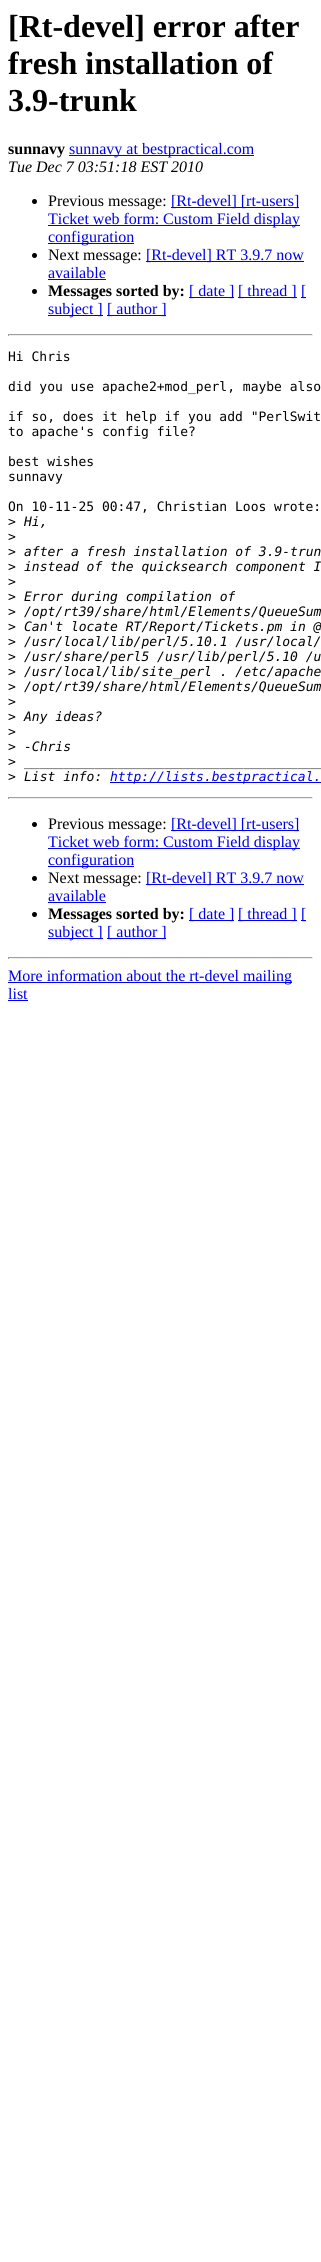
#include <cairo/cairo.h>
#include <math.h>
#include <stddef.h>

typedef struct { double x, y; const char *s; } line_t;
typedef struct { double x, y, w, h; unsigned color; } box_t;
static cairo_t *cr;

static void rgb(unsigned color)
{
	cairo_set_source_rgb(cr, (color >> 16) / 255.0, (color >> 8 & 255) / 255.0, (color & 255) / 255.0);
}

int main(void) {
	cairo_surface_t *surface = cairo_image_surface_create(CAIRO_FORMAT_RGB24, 321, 2262);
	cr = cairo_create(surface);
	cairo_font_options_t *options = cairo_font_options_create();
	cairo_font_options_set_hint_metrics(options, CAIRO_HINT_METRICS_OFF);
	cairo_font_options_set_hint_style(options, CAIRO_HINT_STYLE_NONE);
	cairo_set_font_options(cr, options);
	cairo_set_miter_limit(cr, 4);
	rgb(0xffffff);
	cairo_paint(cr);
	rgb(0x0000ee);
	cairo_rectangle(cr, 69, 155, 185, 1);
	cairo_fill(cr);
	rgb(0x000000);
	cairo_arc(cr, 34.5, 201.5, 2.5, 0, 2 * M_PI);
	cairo_fill(cr);
	{
		static const box_t items[] = {
			{171, 207, 128, 1, 0x0000ee},
			{48, 225, 252, 1, 0x0000ee},
			{48, 243, 86, 1, 0x0000ee},
		};
		for (size_t i = 0; i < sizeof items / sizeof *items; i++) {
			rgb(items[i].color);
			cairo_rectangle(cr, items[i].x, items[i].y, items[i].w, items[i].h);
			cairo_fill(cr);
		}
	}
	rgb(0x000000);
	cairo_arc(cr, 34.5, 255.5, 2.5, 0, 2 * M_PI);
	cairo_fill(cr);
	rgb(0x0000ee);
	cairo_rectangle(cr, 146, 261, 158, 1);
	cairo_fill(cr);
	cairo_rectangle(cr, 48, 279, 58, 1);
	cairo_fill(cr);
	rgb(0x000000);
	cairo_arc(cr, 34.5, 291.5, 2.5, 0, 2 * M_PI);
	cairo_fill(cr);
	{
		static const box_t items[] = {
			{189, 297, 45, 1, 0x0000ee},
			{238, 297, 59, 1, 0x0000ee},
			{301, 297, 5, 1, 0x0000ee},
			{48, 315, 55, 1, 0x0000ee},
			{107, 315, 59, 1, 0x0000ee},
			{8, 334, 305, 1, 0x9f9f9f},
			{312, 334, 1, 2, 0xeeeeee},
			{8, 335, 305, 1, 0xeeeeee},
			{8, 334, 1, 2, 0x9f9f9f},
			{110, 782, 211, 1, 0x0000ee},
			{8, 797, 305, 1, 0x9f9f9f},
			{312, 797, 1, 2, 0xeeeeee},
			{8, 798, 305, 1, 0xeeeeee},
			{8, 797, 1, 2, 0x9f9f9f},
		};
		for (size_t i = 0; i < sizeof items / sizeof *items; i++) {
			rgb(items[i].color);
			cairo_rectangle(cr, items[i].x, items[i].y, items[i].w, items[i].h);
			cairo_fill(cr);
		}
	}
	rgb(0x000000);
	cairo_arc(cr, 34.5, 824.5, 2.5, 0, 2 * M_PI);
	cairo_fill(cr);
	{
		static const box_t items[] = {
			{171, 830, 128, 1, 0x0000ee},
			{48, 848, 252, 1, 0x0000ee},
			{48, 866, 86, 1, 0x0000ee},
		};
		for (size_t i = 0; i < sizeof items / sizeof *items; i++) {
			rgb(items[i].color);
			cairo_rectangle(cr, items[i].x, items[i].y, items[i].w, items[i].h);
			cairo_fill(cr);
		}
	}
	rgb(0x000000);
	cairo_arc(cr, 34.5, 878.5, 2.5, 0, 2 * M_PI);
	cairo_fill(cr);
	rgb(0x0000ee);
	cairo_rectangle(cr, 146, 884, 158, 1);
	cairo_fill(cr);
	cairo_rectangle(cr, 48, 902, 58, 1);
	cairo_fill(cr);
	rgb(0x000000);
	cairo_arc(cr, 34.5, 914.5, 2.5, 0, 2 * M_PI);
	cairo_fill(cr);
	{
		static const box_t items[] = {
			{189, 920, 45, 1, 0x0000ee},
			{238, 920, 59, 1, 0x0000ee},
			{301, 920, 5, 1, 0x0000ee},
			{48, 938, 55, 1, 0x0000ee},
			{107, 938, 59, 1, 0x0000ee},
			{8, 957, 305, 1, 0x9f9f9f},
			{312, 957, 1, 2, 0xeeeeee},
			{8, 958, 305, 1, 0xeeeeee},
			{8, 957, 1, 2, 0x9f9f9f},
			{8, 982, 284, 1, 0x0000ee},
			{8, 1000, 20, 1, 0x0000ee},
		};
		for (size_t i = 0; i < sizeof items / sizeof *items; i++) {
			rgb(items[i].color);
			cairo_rectangle(cr, items[i].x, items[i].y, items[i].w, items[i].h);
			cairo_fill(cr);
		}
	}
	cairo_select_font_face(cr, "Liberation Serif", CAIRO_FONT_SLANT_NORMAL, CAIRO_FONT_WEIGHT_BOLD);
	cairo_set_font_size(cr, 32);
	rgb(0x000000);
	{
		static const line_t items[] = {
			{8, 37, "[Rt-devel] error after"},
			{8, 74, "fresh installation of"},
			{8, 111, "3.9-trunk"},
		};
		for (size_t i = 0; i < sizeof items / sizeof *items; i++) {
			cairo_move_to(cr, items[i].x, items[i].y);
			cairo_show_text(cr, items[i].s);
		}
	}
	cairo_set_font_size(cr, 16);
	cairo_move_to(cr, 8, 154);
	cairo_show_text(cr, "sunnavy");
	cairo_select_font_face(cr, "Liberation Serif", CAIRO_FONT_SLANT_NORMAL, CAIRO_FONT_WEIGHT_NORMAL);
	rgb(0x0000ee);
	cairo_move_to(cr, 69, 154);
	cairo_show_text(cr, "sunnavy at bestpractical.com");
	cairo_select_font_face(cr, "Liberation Serif", CAIRO_FONT_SLANT_ITALIC, CAIRO_FONT_WEIGHT_NORMAL);
	rgb(0x000000);
	cairo_move_to(cr, 8, 172);
	cairo_show_text(cr, "Tue Dec 7 03:51:18 EST 2010");
	cairo_select_font_face(cr, "Liberation Serif", CAIRO_FONT_SLANT_NORMAL, CAIRO_FONT_WEIGHT_NORMAL);
	cairo_move_to(cr, 48, 206);
	cairo_show_text(cr, "Previous message:");
	rgb(0x0000ee);
	{
		static const line_t items[] = {
			{171, 206, "[Rt-devel] [rt-users]"},
			{48, 224, "Ticket web form: Custom Field display"},
			{48, 242, "configuration"},
		};
		for (size_t i = 0; i < sizeof items / sizeof *items; i++) {
			cairo_move_to(cr, items[i].x, items[i].y);
			cairo_show_text(cr, items[i].s);
		}
	}
	rgb(0x000000);
	cairo_move_to(cr, 48, 260);
	cairo_show_text(cr, "Next message:");
	rgb(0x0000ee);
	cairo_move_to(cr, 146, 260);
	cairo_show_text(cr, "[Rt-devel] RT 3.9.7 now");
	cairo_move_to(cr, 48, 278);
	cairo_show_text(cr, "available");
	cairo_select_font_face(cr, "Liberation Serif", CAIRO_FONT_SLANT_NORMAL, CAIRO_FONT_WEIGHT_BOLD);
	rgb(0x000000);
	cairo_move_to(cr, 48, 296);
	cairo_show_text(cr, "Messages sorted by:");
	cairo_select_font_face(cr, "Liberation Serif", CAIRO_FONT_SLANT_NORMAL, CAIRO_FONT_WEIGHT_NORMAL);
	rgb(0x0000ee);
	{
		static const line_t items[] = {
			{189, 296, "[ date ]"},
			{238, 296, "[ thread ]"},
			{301, 296, "["},
			{48, 314, "subject ]"},
			{107, 314, "[ author ]"},
		};
		for (size_t i = 0; i < sizeof items / sizeof *items; i++) {
			cairo_move_to(cr, items[i].x, items[i].y);
			cairo_show_text(cr, items[i].s);
		}
	}
	cairo_select_font_face(cr, "DejaVu Sans Mono", CAIRO_FONT_SLANT_NORMAL, CAIRO_FONT_WEIGHT_NORMAL);
	cairo_set_font_size(cr, 13);
	rgb(0x000000);
	{
		static const line_t items[] = {
			{8, 361, "Hi Chris"},
			{8, 391, "did you use apache2+mod_perl, maybe also"},
			{8, 421, "if so, does it help if you add \"PerlSwit"},
			{8, 436, "to apache's config file?"},
			{8, 466, "best wishes"},
			{8, 481, "sunnavy"},
			{8, 511, "On 10-11-25 00:47, Christian Loos wrote:"},
			{8, 526, ">"},
		};
		for (size_t i = 0; i < sizeof items / sizeof *items; i++) {
			cairo_move_to(cr, items[i].x, items[i].y);
			cairo_show_text(cr, items[i].s);
		}
	}
	cairo_select_font_face(cr, "DejaVu Sans Mono", CAIRO_FONT_SLANT_ITALIC, CAIRO_FONT_WEIGHT_NORMAL);
	cairo_move_to(cr, 24, 526);
	cairo_show_text(cr, "Hi,");
	cairo_select_font_face(cr, "DejaVu Sans Mono", CAIRO_FONT_SLANT_NORMAL, CAIRO_FONT_WEIGHT_NORMAL);
	cairo_move_to(cr, 8, 541);
	cairo_show_text(cr, ">");
	cairo_move_to(cr, 8, 556);
	cairo_show_text(cr, ">");
	cairo_select_font_face(cr, "DejaVu Sans Mono", CAIRO_FONT_SLANT_ITALIC, CAIRO_FONT_WEIGHT_NORMAL);
	cairo_move_to(cr, 24, 556);
	cairo_show_text(cr, "after a fresh installation of 3.9-trun");
	cairo_select_font_face(cr, "DejaVu Sans Mono", CAIRO_FONT_SLANT_NORMAL, CAIRO_FONT_WEIGHT_NORMAL);
	cairo_move_to(cr, 8, 571);
	cairo_show_text(cr, ">");
	cairo_select_font_face(cr, "DejaVu Sans Mono", CAIRO_FONT_SLANT_ITALIC, CAIRO_FONT_WEIGHT_NORMAL);
	cairo_move_to(cr, 24, 571);
	cairo_show_text(cr, "instead of the quicksearch component I");
	cairo_select_font_face(cr, "DejaVu Sans Mono", CAIRO_FONT_SLANT_NORMAL, CAIRO_FONT_WEIGHT_NORMAL);
	cairo_move_to(cr, 8, 586);
	cairo_show_text(cr, ">");
	cairo_move_to(cr, 8, 601);
	cairo_show_text(cr, ">");
	cairo_select_font_face(cr, "DejaVu Sans Mono", CAIRO_FONT_SLANT_ITALIC, CAIRO_FONT_WEIGHT_NORMAL);
	cairo_move_to(cr, 24, 601);
	cairo_show_text(cr, "Error during compilation of");
	cairo_select_font_face(cr, "DejaVu Sans Mono", CAIRO_FONT_SLANT_NORMAL, CAIRO_FONT_WEIGHT_NORMAL);
	cairo_move_to(cr, 8, 616);
	cairo_show_text(cr, ">");
	cairo_select_font_face(cr, "DejaVu Sans Mono", CAIRO_FONT_SLANT_ITALIC, CAIRO_FONT_WEIGHT_NORMAL);
	cairo_move_to(cr, 24, 616);
	cairo_show_text(cr, "/opt/rt39/share/html/Elements/QueueSum");
	cairo_select_font_face(cr, "DejaVu Sans Mono", CAIRO_FONT_SLANT_NORMAL, CAIRO_FONT_WEIGHT_NORMAL);
	cairo_move_to(cr, 8, 631);
	cairo_show_text(cr, ">");
	cairo_select_font_face(cr, "DejaVu Sans Mono", CAIRO_FONT_SLANT_ITALIC, CAIRO_FONT_WEIGHT_NORMAL);
	cairo_move_to(cr, 24, 631);
	cairo_show_text(cr, "Can't locate RT/Report/Tickets.pm in @");
	cairo_select_font_face(cr, "DejaVu Sans Mono", CAIRO_FONT_SLANT_NORMAL, CAIRO_FONT_WEIGHT_NORMAL);
	cairo_move_to(cr, 8, 646);
	cairo_show_text(cr, ">");
	cairo_select_font_face(cr, "DejaVu Sans Mono", CAIRO_FONT_SLANT_ITALIC, CAIRO_FONT_WEIGHT_NORMAL);
	cairo_move_to(cr, 24, 646);
	cairo_show_text(cr, "/usr/local/lib/perl/5.10.1 /usr/local/");
	cairo_select_font_face(cr, "DejaVu Sans Mono", CAIRO_FONT_SLANT_NORMAL, CAIRO_FONT_WEIGHT_NORMAL);
	cairo_move_to(cr, 8, 661);
	cairo_show_text(cr, ">");
	cairo_select_font_face(cr, "DejaVu Sans Mono", CAIRO_FONT_SLANT_ITALIC, CAIRO_FONT_WEIGHT_NORMAL);
	cairo_move_to(cr, 24, 661);
	cairo_show_text(cr, "/usr/share/perl5 /usr/lib/perl/5.10 /u");
	cairo_select_font_face(cr, "DejaVu Sans Mono", CAIRO_FONT_SLANT_NORMAL, CAIRO_FONT_WEIGHT_NORMAL);
	cairo_move_to(cr, 8, 676);
	cairo_show_text(cr, ">");
	cairo_select_font_face(cr, "DejaVu Sans Mono", CAIRO_FONT_SLANT_ITALIC, CAIRO_FONT_WEIGHT_NORMAL);
	cairo_move_to(cr, 24, 676);
	cairo_show_text(cr, "/usr/local/lib/site_perl . /etc/apache");
	cairo_select_font_face(cr, "DejaVu Sans Mono", CAIRO_FONT_SLANT_NORMAL, CAIRO_FONT_WEIGHT_NORMAL);
	cairo_move_to(cr, 8, 691);
	cairo_show_text(cr, ">");
	cairo_select_font_face(cr, "DejaVu Sans Mono", CAIRO_FONT_SLANT_ITALIC, CAIRO_FONT_WEIGHT_NORMAL);
	cairo_move_to(cr, 24, 691);
	cairo_show_text(cr, "/opt/rt39/share/html/Elements/QueueSum");
	cairo_select_font_face(cr, "DejaVu Sans Mono", CAIRO_FONT_SLANT_NORMAL, CAIRO_FONT_WEIGHT_NORMAL);
	cairo_move_to(cr, 8, 706);
	cairo_show_text(cr, ">");
	cairo_move_to(cr, 8, 721);
	cairo_show_text(cr, ">");
	cairo_select_font_face(cr, "DejaVu Sans Mono", CAIRO_FONT_SLANT_ITALIC, CAIRO_FONT_WEIGHT_NORMAL);
	cairo_move_to(cr, 24, 721);
	cairo_show_text(cr, "Any ideas?");
	cairo_select_font_face(cr, "DejaVu Sans Mono", CAIRO_FONT_SLANT_NORMAL, CAIRO_FONT_WEIGHT_NORMAL);
	cairo_move_to(cr, 8, 736);
	cairo_show_text(cr, ">");
	cairo_move_to(cr, 8, 751);
	cairo_show_text(cr, ">");
	cairo_select_font_face(cr, "DejaVu Sans Mono", CAIRO_FONT_SLANT_ITALIC, CAIRO_FONT_WEIGHT_NORMAL);
	cairo_move_to(cr, 24, 751);
	cairo_show_text(cr, "-Chris");
	cairo_select_font_face(cr, "DejaVu Sans Mono", CAIRO_FONT_SLANT_NORMAL, CAIRO_FONT_WEIGHT_NORMAL);
	cairo_move_to(cr, 8, 766);
	cairo_show_text(cr, ">");
	cairo_select_font_face(cr, "DejaVu Sans Mono", CAIRO_FONT_SLANT_ITALIC, CAIRO_FONT_WEIGHT_NORMAL);
	cairo_move_to(cr, 24, 766);
	cairo_show_text(cr, "______________________________________");
	cairo_select_font_face(cr, "DejaVu Sans Mono", CAIRO_FONT_SLANT_NORMAL, CAIRO_FONT_WEIGHT_NORMAL);
	cairo_move_to(cr, 8, 781);
	cairo_show_text(cr, ">");
	cairo_select_font_face(cr, "DejaVu Sans Mono", CAIRO_FONT_SLANT_ITALIC, CAIRO_FONT_WEIGHT_NORMAL);
	cairo_move_to(cr, 24, 781);
	cairo_show_text(cr, "List info:");
	rgb(0x0000ee);
	cairo_move_to(cr, 110, 781);
	cairo_show_text(cr, "http://lists.bestpractical.");
	cairo_select_font_face(cr, "Liberation Serif", CAIRO_FONT_SLANT_NORMAL, CAIRO_FONT_WEIGHT_NORMAL);
	cairo_set_font_size(cr, 16);
	rgb(0x000000);
	cairo_move_to(cr, 48, 829);
	cairo_show_text(cr, "Previous message:");
	rgb(0x0000ee);
	{
		static const line_t items[] = {
			{171, 829, "[Rt-devel] [rt-users]"},
			{48, 847, "Ticket web form: Custom Field display"},
			{48, 865, "configuration"},
		};
		for (size_t i = 0; i < sizeof items / sizeof *items; i++) {
			cairo_move_to(cr, items[i].x, items[i].y);
			cairo_show_text(cr, items[i].s);
		}
	}
	rgb(0x000000);
	cairo_move_to(cr, 48, 883);
	cairo_show_text(cr, "Next message:");
	rgb(0x0000ee);
	cairo_move_to(cr, 146, 883);
	cairo_show_text(cr, "[Rt-devel] RT 3.9.7 now");
	cairo_move_to(cr, 48, 901);
	cairo_show_text(cr, "available");
	cairo_select_font_face(cr, "Liberation Serif", CAIRO_FONT_SLANT_NORMAL, CAIRO_FONT_WEIGHT_BOLD);
	rgb(0x000000);
	cairo_move_to(cr, 48, 919);
	cairo_show_text(cr, "Messages sorted by:");
	cairo_select_font_face(cr, "Liberation Serif", CAIRO_FONT_SLANT_NORMAL, CAIRO_FONT_WEIGHT_NORMAL);
	rgb(0x0000ee);
	{
		static const line_t items[] = {
			{189, 919, "[ date ]"},
			{238, 919, "[ thread ]"},
			{301, 919, "["},
			{48, 937, "subject ]"},
			{107, 937, "[ author ]"},
			{8, 981, "More information about the rt-devel mailing"},
			{8, 999, "list"},
		};
		for (size_t i = 0; i < sizeof items / sizeof *items; i++) {
			cairo_move_to(cr, items[i].x, items[i].y);
			cairo_show_text(cr, items[i].s);
		}
	}
	cairo_surface_write_to_png(surface, "page.png");
	cairo_font_options_destroy(options);
	cairo_destroy(cr);
	cairo_surface_destroy(surface);
	return 0;
}
